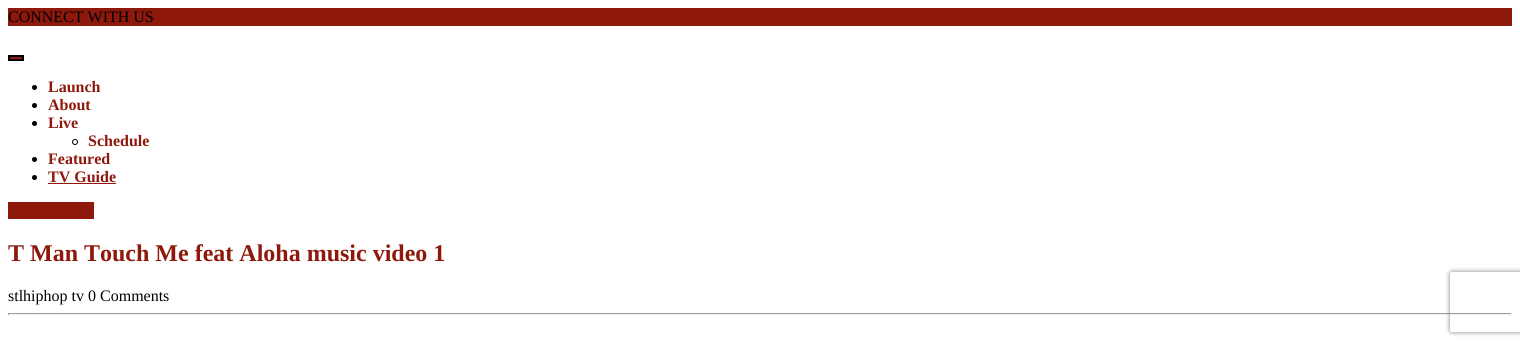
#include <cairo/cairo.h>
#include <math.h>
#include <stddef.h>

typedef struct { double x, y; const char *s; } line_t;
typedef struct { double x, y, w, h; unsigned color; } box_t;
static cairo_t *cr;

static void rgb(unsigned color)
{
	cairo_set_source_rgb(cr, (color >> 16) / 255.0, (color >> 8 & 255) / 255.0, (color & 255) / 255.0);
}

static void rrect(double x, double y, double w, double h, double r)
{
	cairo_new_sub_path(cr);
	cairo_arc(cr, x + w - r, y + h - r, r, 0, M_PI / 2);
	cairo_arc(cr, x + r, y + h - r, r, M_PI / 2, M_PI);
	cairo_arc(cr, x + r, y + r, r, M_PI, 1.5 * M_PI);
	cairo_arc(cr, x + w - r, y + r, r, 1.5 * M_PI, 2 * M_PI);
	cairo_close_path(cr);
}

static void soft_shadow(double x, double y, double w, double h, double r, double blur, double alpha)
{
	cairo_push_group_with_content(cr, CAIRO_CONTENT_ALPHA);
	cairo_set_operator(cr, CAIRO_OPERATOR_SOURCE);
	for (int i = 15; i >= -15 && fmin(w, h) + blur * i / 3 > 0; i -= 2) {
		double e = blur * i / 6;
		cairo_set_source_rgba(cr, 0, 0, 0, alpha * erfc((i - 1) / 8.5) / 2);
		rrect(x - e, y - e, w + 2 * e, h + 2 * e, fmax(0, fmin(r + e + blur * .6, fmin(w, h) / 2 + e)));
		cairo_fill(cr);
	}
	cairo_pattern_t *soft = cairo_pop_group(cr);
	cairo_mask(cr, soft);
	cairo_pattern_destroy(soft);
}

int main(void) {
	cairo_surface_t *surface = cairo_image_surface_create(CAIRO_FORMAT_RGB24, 1520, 346);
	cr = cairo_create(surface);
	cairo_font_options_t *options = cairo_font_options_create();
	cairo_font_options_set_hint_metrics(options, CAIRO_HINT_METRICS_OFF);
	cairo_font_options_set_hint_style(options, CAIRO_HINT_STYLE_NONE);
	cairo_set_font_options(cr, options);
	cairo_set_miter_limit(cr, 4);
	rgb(0xffffff);
	cairo_paint(cr);
	rgb(0x8e180b);
	cairo_rectangle(cr, 8, 8, 1504, 18);
	cairo_fill(cr);
	cairo_rectangle(cr, 9, 56, 14, 4);
	cairo_fill_preserve(cr);
	rgb(0x000000);
	cairo_stroke(cr);
	cairo_arc(cr, 34.5, 87.5, 2.5, 0, 2 * M_PI);
	cairo_fill(cr);
	cairo_arc(cr, 34.5, 105.5, 2.5, 0, 2 * M_PI);
	cairo_fill(cr);
	cairo_arc(cr, 34.5, 123.5, 2.5, 0, 2 * M_PI);
	cairo_fill(cr);
	cairo_arc(cr, 75, 142, 2.5, 0, 2 * M_PI);
	cairo_set_line_width(cr, 1);
	cairo_stroke(cr);
	cairo_arc(cr, 34.5, 159.5, 2.5, 0, 2 * M_PI);
	cairo_fill(cr);
	cairo_arc(cr, 34.5, 177.5, 2.5, 0, 2 * M_PI);
	cairo_fill(cr);
	{
		static const box_t items[] = {
			{48, 183, 68, 1, 0x8e180b},
			{8, 202, 86, 17, 0x8e180b},
			{8, 313, 1504, 1, 0x9f9f9f},
			{1511, 313, 1, 2, 0xeeeeee},
			{8, 314, 1504, 1, 0xeeeeee},
			{8, 313, 1, 2, 0x9f9f9f},
		};
		for (size_t i = 0; i < sizeof items / sizeof *items; i++) {
			rgb(items[i].color);
			cairo_rectangle(cr, items[i].x, items[i].y, items[i].w, items[i].h);
			cairo_fill(cr);
		}
	}
	cairo_save(cr);
	cairo_set_fill_rule(cr, CAIRO_FILL_RULE_EVEN_ODD);
	cairo_new_path(cr);
	cairo_move_to(cr, 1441, 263);
	cairo_line_to(cr, 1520, 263);
	cairo_line_to(cr, 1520, 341);
	cairo_line_to(cr, 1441, 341);
	cairo_close_path(cr);
	cairo_move_to(cr, 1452, 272);
	cairo_line_to(cr, 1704, 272);
	cairo_curve_to(cr, 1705, 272, 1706, 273, 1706, 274);
	cairo_line_to(cr, 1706, 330);
	cairo_curve_to(cr, 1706, 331, 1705, 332, 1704, 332);
	cairo_line_to(cr, 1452, 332);
	cairo_curve_to(cr, 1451, 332, 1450, 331, 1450, 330);
	cairo_line_to(cr, 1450, 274);
	cairo_curve_to(cr, 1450, 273, 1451, 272, 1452, 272);
	cairo_close_path(cr);
	cairo_clip(cr);
	rgb(0x808080);
	soft_shadow(1450, 272, 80, 60, 2, 2.5, 1);
	cairo_restore(cr);
	cairo_select_font_face(cr, "Liberation Serif", CAIRO_FONT_SLANT_NORMAL, CAIRO_FONT_WEIGHT_NORMAL);
	cairo_set_font_size(cr, 16);
	rgb(0x000000);
	cairo_move_to(cr, 8, 22);
	cairo_show_text(cr, "CONNECT WITH US");
	cairo_select_font_face(cr, "Liberation Serif", CAIRO_FONT_SLANT_NORMAL, CAIRO_FONT_WEIGHT_BOLD);
	rgb(0x8e180b);
	{
		static const line_t items[] = {
			{48, 92, "Launch"},
			{48, 110, "About"},
			{48, 128, "Live"},
			{88, 146, "Schedule"},
			{48, 164, "Featured"},
			{48, 182, "TV Guide"},
		};
		for (size_t i = 0; i < sizeof items / sizeof *items; i++) {
			cairo_move_to(cr, items[i].x, items[i].y);
			cairo_show_text(cr, items[i].s);
		}
	}
	cairo_set_font_size(cr, 24);
	cairo_move_to(cr, 8, 261);
	cairo_show_text(cr, "T Man Touch Me feat Aloha music video 1");
	cairo_select_font_face(cr, "Liberation Serif", CAIRO_FONT_SLANT_NORMAL, CAIRO_FONT_WEIGHT_NORMAL);
	cairo_set_font_size(cr, 16);
	rgb(0x000000);
	cairo_move_to(cr, 8, 301);
	cairo_show_text(cr, "stlhiphop tv 0 Comments");
	cairo_surface_write_to_png(surface, "page.png");
	cairo_font_options_destroy(options);
	cairo_destroy(cr);
	cairo_surface_destroy(surface);
	return 0;
}
